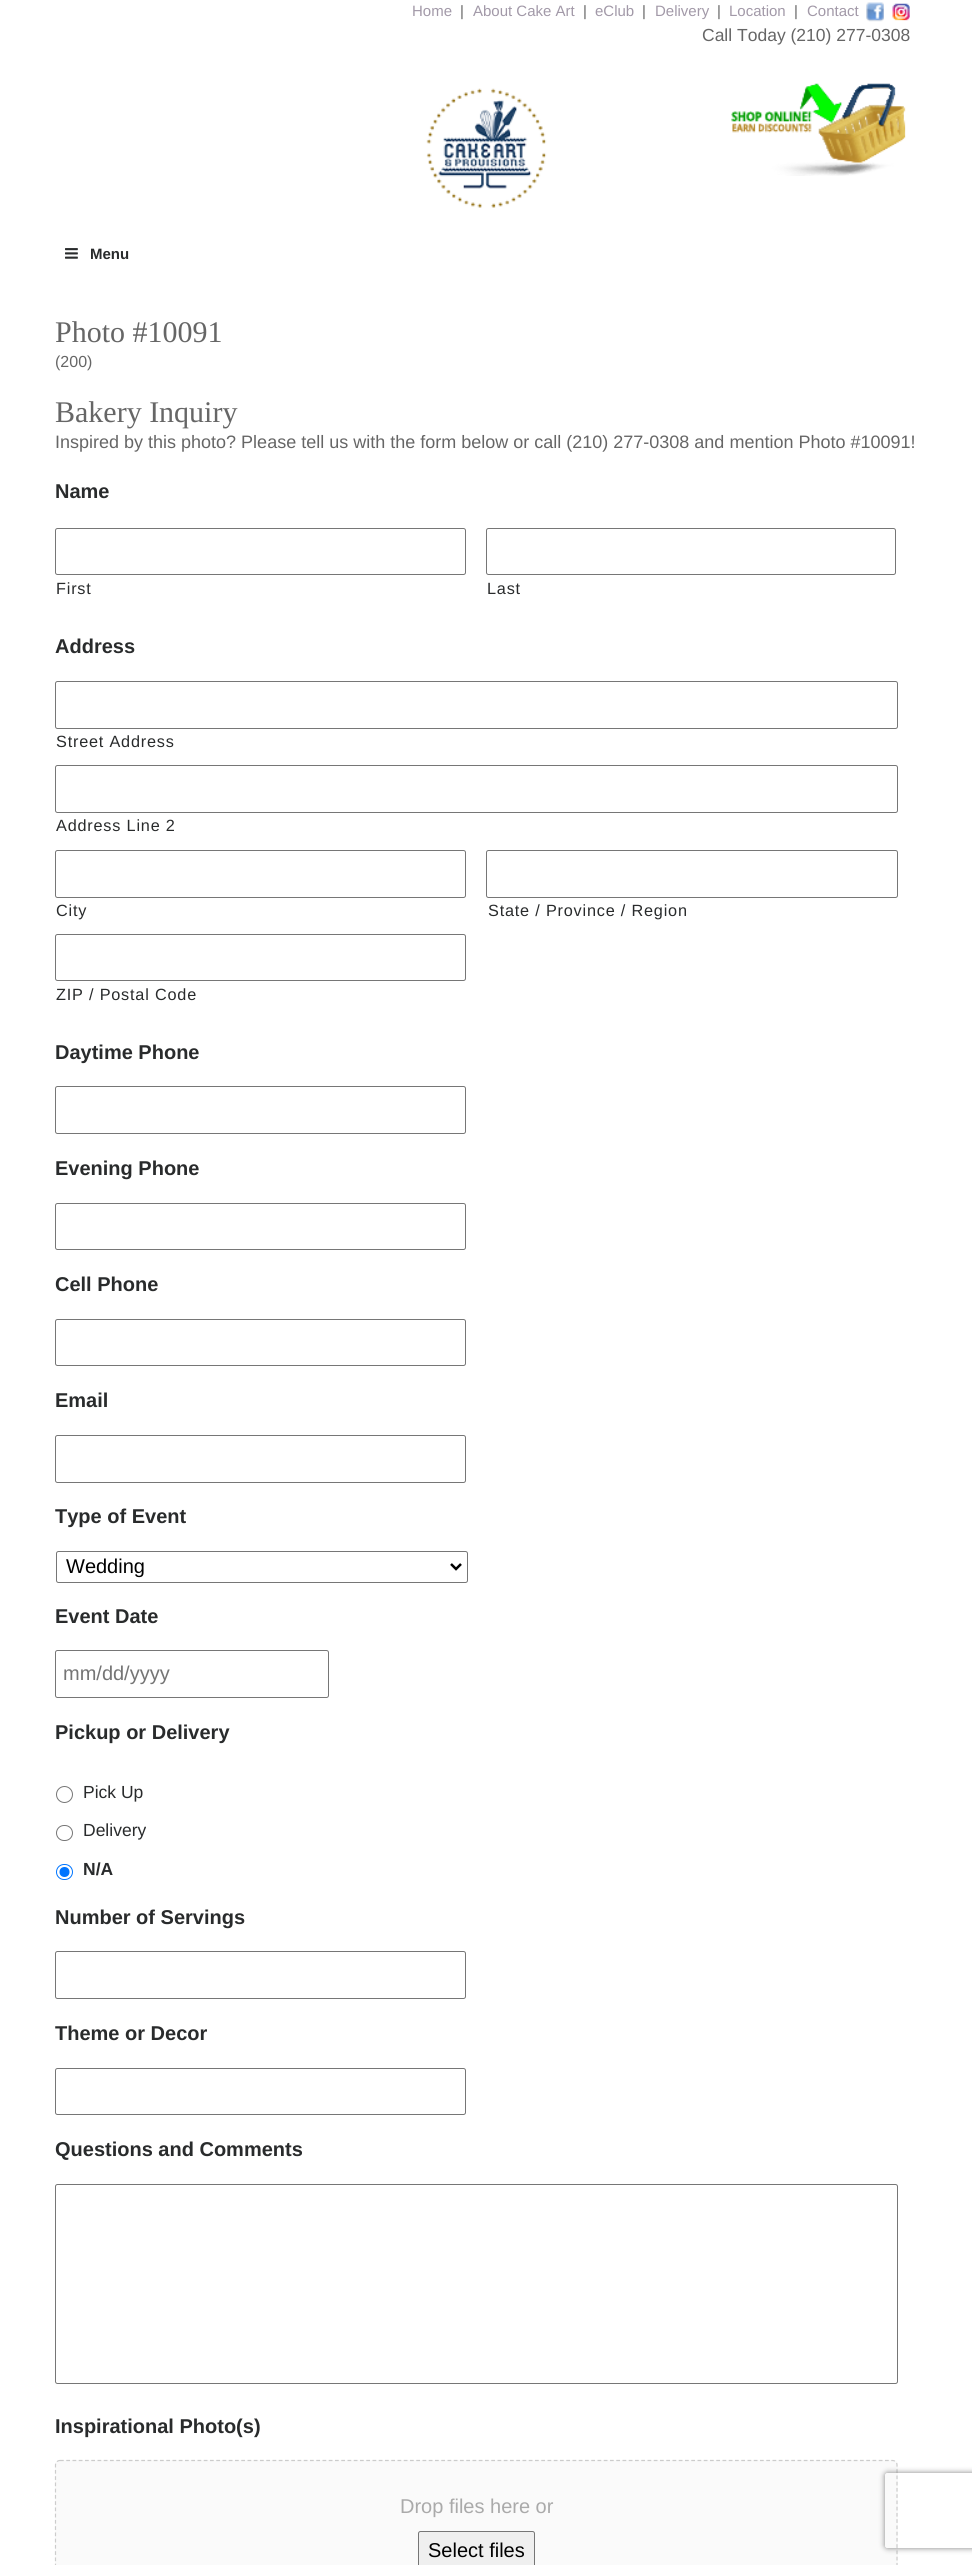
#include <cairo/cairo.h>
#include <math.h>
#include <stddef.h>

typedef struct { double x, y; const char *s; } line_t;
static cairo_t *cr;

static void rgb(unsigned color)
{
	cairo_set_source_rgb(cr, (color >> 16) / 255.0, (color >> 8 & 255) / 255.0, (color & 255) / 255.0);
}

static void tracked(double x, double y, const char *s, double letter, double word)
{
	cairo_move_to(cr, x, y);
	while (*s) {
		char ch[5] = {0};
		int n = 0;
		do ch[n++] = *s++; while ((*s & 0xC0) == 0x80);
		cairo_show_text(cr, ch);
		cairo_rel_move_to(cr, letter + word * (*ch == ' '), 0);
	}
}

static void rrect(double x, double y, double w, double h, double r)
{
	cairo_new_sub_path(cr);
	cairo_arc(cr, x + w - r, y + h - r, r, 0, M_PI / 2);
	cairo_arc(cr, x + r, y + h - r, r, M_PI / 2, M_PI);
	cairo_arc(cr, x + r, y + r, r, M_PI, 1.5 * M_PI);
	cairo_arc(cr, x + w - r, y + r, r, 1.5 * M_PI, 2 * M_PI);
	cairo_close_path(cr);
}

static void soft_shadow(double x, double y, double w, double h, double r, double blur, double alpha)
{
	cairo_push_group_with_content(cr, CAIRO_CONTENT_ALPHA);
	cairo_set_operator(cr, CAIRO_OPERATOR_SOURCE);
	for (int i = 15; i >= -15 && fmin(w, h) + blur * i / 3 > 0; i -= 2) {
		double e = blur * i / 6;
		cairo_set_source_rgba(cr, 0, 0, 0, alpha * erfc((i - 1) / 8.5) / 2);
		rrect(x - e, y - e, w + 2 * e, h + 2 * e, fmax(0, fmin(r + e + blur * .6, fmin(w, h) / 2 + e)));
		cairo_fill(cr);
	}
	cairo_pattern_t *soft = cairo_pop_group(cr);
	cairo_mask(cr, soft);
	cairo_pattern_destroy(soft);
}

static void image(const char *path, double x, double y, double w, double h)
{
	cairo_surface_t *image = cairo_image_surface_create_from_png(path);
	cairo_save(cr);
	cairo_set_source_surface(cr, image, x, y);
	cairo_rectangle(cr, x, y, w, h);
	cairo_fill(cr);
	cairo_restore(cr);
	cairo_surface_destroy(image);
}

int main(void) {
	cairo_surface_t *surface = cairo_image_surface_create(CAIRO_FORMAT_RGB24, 972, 2565);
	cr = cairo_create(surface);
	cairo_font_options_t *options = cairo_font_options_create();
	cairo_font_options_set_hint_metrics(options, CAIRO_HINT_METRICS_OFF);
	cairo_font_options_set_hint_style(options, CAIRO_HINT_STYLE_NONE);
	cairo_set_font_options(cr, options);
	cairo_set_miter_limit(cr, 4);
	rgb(0xffffff);
	cairo_paint(cr);
	image("img/1.png", 866, 2, 18, 20);
	image("img/2.png", 892, 3, 18, 18);
	image("img/3.png", 426, 88, 121, 120);
	image("img/4.png", 731, 83, 175, 93);
	image("img/5.png", 65, 248, 13, 11);
	rrect(55.5, 528.5, 410, 46, 2);
	rgb(0x767676);
	cairo_set_line_width(cr, 1);
	cairo_stroke(cr);
	rrect(486.5, 528.5, 409, 46, 2);
	cairo_stroke(cr);
	rrect(55.5, 681.5, 842, 47, 2);
	cairo_stroke(cr);
	rrect(55.5, 765.5, 842, 47, 2);
	cairo_stroke(cr);
	rrect(55.5, 850.5, 410, 47, 2);
	cairo_stroke(cr);
	rrect(486.5, 850.5, 411, 47, 2);
	cairo_stroke(cr);
	rrect(55.5, 934.5, 410, 46, 2);
	cairo_stroke(cr);
	rrect(55.5, 1086.5, 410, 47, 2);
	cairo_stroke(cr);
	rrect(55.5, 1203.5, 410, 46, 2);
	cairo_stroke(cr);
	rrect(55.5, 1319.5, 410, 46, 2);
	cairo_stroke(cr);
	rrect(55.5, 1435.5, 410, 47, 2);
	cairo_stroke(cr);
	rrect(56.5, 1551.5, 411, 31, 2);
	cairo_stroke(cr);
	cairo_new_path(cr);
	cairo_move_to(cr, 451, 1564);
	cairo_line_to(cr, 456, 1569);
	cairo_line_to(cr, 461, 1564);
	rgb(0x000000);
	cairo_set_line_width(cr, 2.5);
	cairo_stroke(cr);
	rrect(55.5, 1650.5, 273, 47, 2);
	rgb(0x767676);
	cairo_set_line_width(cr, 1);
	cairo_stroke(cr);
	cairo_arc(cr, 64.5, 1794.5, 8, 0, 2 * M_PI);
	cairo_stroke(cr);
	rrect(56.5, 1825.5, 16, 15, 7.5);
	cairo_stroke(cr);
	rrect(56.5, 1864.5, 16, 15, 7.5);
	rgb(0x0075ff);
	cairo_stroke(cr);
	cairo_arc(cr, 64.5, 1872, 5, 0, 2 * M_PI);
	cairo_fill(cr);
	rrect(55.5, 1951.5, 410, 47, 2);
	rgb(0x767676);
	cairo_stroke(cr);
	rrect(55.5, 2068.5, 410, 46, 2);
	cairo_stroke(cr);
	rrect(55.5, 2184.5, 842, 199, 2);
	cairo_stroke(cr);
	rgb(0xfafafa);
	rrect(55, 2460, 843, 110, 5);
	cairo_fill(cr);
	cairo_new_path(cr);
	cairo_move_to(cr, 60, 2460.5);
	cairo_line_to(cr, 892.5, 2460.5);
	cairo_curve_to(cr, 895, 2460.5, 897, 2462.5, 897, 2465);
	cairo_line_to(cr, 897, 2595);
	cairo_curve_to(cr, 897, 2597.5, 895, 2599.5, 892.5, 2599.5);
	cairo_line_to(cr, 60, 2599.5);
	cairo_curve_to(cr, 57.5, 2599.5, 55.5, 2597.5, 55.5, 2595);
	cairo_line_to(cr, 55.5, 2465);
	cairo_curve_to(cr, 55.5, 2462.5, 57.5, 2460.5, 60, 2460.5);
	cairo_close_path(cr);
	rgb(0xcccccc);
	cairo_set_line_width(cr, 1.2);
	cairo_set_dash(cr, (double[]){3.75, 2.5}, 2, 0);
	cairo_stroke(cr);
	rgb(0xefefef);
	rrect(418.5, 2531.5, 116, 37, 2);
	cairo_fill_preserve(cr);
	rgb(0x767676);
	cairo_set_line_width(cr, 1);
	cairo_set_dash(cr, NULL, 0, 0);
	cairo_stroke(cr);
	cairo_save(cr);
	cairo_set_fill_rule(cr, CAIRO_FILL_RULE_EVEN_ODD);
	cairo_new_path(cr);
	cairo_move_to(cr, 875, 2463);
	cairo_line_to(cr, 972, 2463);
	cairo_line_to(cr, 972, 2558);
	cairo_line_to(cr, 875, 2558);
	cairo_close_path(cr);
	cairo_move_to(cr, 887.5, 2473);
	cairo_line_to(cr, 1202.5, 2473);
	cairo_curve_to(cr, 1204, 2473, 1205, 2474, 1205, 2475.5);
	cairo_line_to(cr, 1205, 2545.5);
	cairo_curve_to(cr, 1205, 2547, 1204, 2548, 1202.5, 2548);
	cairo_line_to(cr, 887.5, 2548);
	cairo_curve_to(cr, 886, 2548, 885, 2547, 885, 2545.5);
	cairo_line_to(cr, 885, 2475.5);
	cairo_curve_to(cr, 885, 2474, 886, 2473, 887.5, 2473);
	cairo_close_path(cr);
	cairo_clip(cr);
	rgb(0x808080);
	soft_shadow(885, 2473, 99, 75, 2.5, 3, 1);
	cairo_restore(cr);
	cairo_select_font_face(cr, "Liberation Sans", CAIRO_FONT_SLANT_NORMAL, CAIRO_FONT_WEIGHT_NORMAL);
	cairo_set_font_size(cr, 15);
	rgb(0xa299a8);
	cairo_move_to(cr, 412, 16);
	cairo_show_text(cr, "Home");
	rgb(0x666666);
	cairo_move_to(cr, 460, 16);
	cairo_show_text(cr, "|");
	rgb(0xa299a8);
	cairo_move_to(cr, 473, 16);
	cairo_show_text(cr, "About Cake Art");
	rgb(0x666666);
	cairo_move_to(cr, 583, 16);
	cairo_show_text(cr, "|");
	rgb(0xa299a8);
	cairo_move_to(cr, 595, 16);
	cairo_show_text(cr, "eClub");
	rgb(0x666666);
	cairo_move_to(cr, 642, 16);
	cairo_show_text(cr, "|");
	rgb(0xa299a8);
	cairo_move_to(cr, 655, 16);
	cairo_show_text(cr, "Delivery");
	rgb(0x666666);
	cairo_move_to(cr, 717, 16);
	cairo_show_text(cr, "|");
	rgb(0xa299a8);
	cairo_move_to(cr, 729, 16);
	cairo_show_text(cr, "Location");
	rgb(0x666666);
	cairo_move_to(cr, 794, 16);
	cairo_show_text(cr, "|");
	rgb(0xa299a8);
	cairo_move_to(cr, 807, 16);
	cairo_show_text(cr, "Contact");
	cairo_set_font_size(cr, 17.5);
	rgb(0x666666);
	cairo_move_to(cr, 702, 41);
	cairo_show_text(cr, "Call Today (210) 277-0308");
	cairo_select_font_face(cr, "Liberation Sans", CAIRO_FONT_SLANT_NORMAL, CAIRO_FONT_WEIGHT_BOLD);
	cairo_set_font_size(cr, 15);
	rgb(0x292b2c);
	cairo_move_to(cr, 90, 259);
	cairo_show_text(cr, "Menu");
	cairo_select_font_face(cr, "Liberation Serif", CAIRO_FONT_SLANT_NORMAL, CAIRO_FONT_WEIGHT_NORMAL);
	cairo_set_font_size(cr, 30);
	rgb(0x666666);
	cairo_move_to(cr, 55, 342);
	cairo_show_text(cr, "Photo #10091");
	cairo_select_font_face(cr, "Liberation Sans", CAIRO_FONT_SLANT_NORMAL, CAIRO_FONT_WEIGHT_NORMAL);
	cairo_set_font_size(cr, 16);
	cairo_move_to(cr, 55, 367);
	cairo_show_text(cr, "(200)");
	cairo_select_font_face(cr, "Liberation Serif", CAIRO_FONT_SLANT_NORMAL, CAIRO_FONT_WEIGHT_NORMAL);
	cairo_set_font_size(cr, 30);
	cairo_move_to(cr, 55, 422);
	cairo_show_text(cr, "Bakery Inquiry");
	cairo_select_font_face(cr, "Liberation Sans", CAIRO_FONT_SLANT_NORMAL, CAIRO_FONT_WEIGHT_NORMAL);
	cairo_set_font_size(cr, 18);
	cairo_move_to(cr, 55, 448);
	cairo_show_text(cr, "Inspired by this photo? Please tell us with the form below or call (210) 277-0308 and mention Photo #10091!");
	cairo_select_font_face(cr, "Liberation Sans", CAIRO_FONT_SLANT_NORMAL, CAIRO_FONT_WEIGHT_BOLD);
	cairo_set_font_size(cr, 20);
	rgb(0x292b2c);
	cairo_move_to(cr, 55, 498);
	cairo_show_text(cr, "Name");
	cairo_select_font_face(cr, "Liberation Sans", CAIRO_FONT_SLANT_NORMAL, CAIRO_FONT_WEIGHT_NORMAL);
	cairo_set_font_size(cr, 16.25);
	tracked(56, 594, "First", 0.8, 0);
	tracked(487, 594, "Last", 0.8, 0);
	cairo_select_font_face(cr, "Liberation Sans", CAIRO_FONT_SLANT_NORMAL, CAIRO_FONT_WEIGHT_BOLD);
	cairo_set_font_size(cr, 20);
	cairo_move_to(cr, 55, 653);
	cairo_show_text(cr, "Address");
	cairo_select_font_face(cr, "Liberation Sans", CAIRO_FONT_SLANT_NORMAL, CAIRO_FONT_WEIGHT_NORMAL);
	cairo_set_font_size(cr, 16.25);
	{
		static const line_t items[] = {
			{56, 747, "Street Address"},
			{56, 831, "Address Line 2"},
			{56, 916, "City"},
			{488, 916, "State / Province / Region"},
			{56, 1000, "ZIP / Postal Code"},
		};
		for (size_t i = 0; i < sizeof items / sizeof *items; i++) {
			tracked(items[i].x, items[i].y, items[i].s, 0.8, 0);
		}
	}
	cairo_select_font_face(cr, "Liberation Sans", CAIRO_FONT_SLANT_NORMAL, CAIRO_FONT_WEIGHT_BOLD);
	cairo_set_font_size(cr, 20);
	{
		static const line_t items[] = {
			{55, 1059, "Daytime Phone"},
			{55, 1175, "Evening Phone"},
			{55, 1291, "Cell Phone"},
			{55, 1407, "Email"},
			{55, 1523, "Type of Event"},
		};
		for (size_t i = 0; i < sizeof items / sizeof *items; i++) {
			cairo_move_to(cr, items[i].x, items[i].y);
			cairo_show_text(cr, items[i].s);
		}
	}
	cairo_select_font_face(cr, "Liberation Sans", CAIRO_FONT_SLANT_NORMAL, CAIRO_FONT_WEIGHT_NORMAL);
	rgb(0x000000);
	cairo_move_to(cr, 66, 1573);
	cairo_show_text(cr, "Wedding");
	cairo_select_font_face(cr, "Liberation Sans", CAIRO_FONT_SLANT_NORMAL, CAIRO_FONT_WEIGHT_BOLD);
	rgb(0x292b2c);
	cairo_move_to(cr, 55, 1623);
	cairo_show_text(cr, "Event Date");
	cairo_select_font_face(cr, "Liberation Sans", CAIRO_FONT_SLANT_NORMAL, CAIRO_FONT_WEIGHT_NORMAL);
	rgb(0x757575);
	cairo_move_to(cr, 63, 1680);
	cairo_show_text(cr, "mm/dd/yyyy");
	cairo_select_font_face(cr, "Liberation Sans", CAIRO_FONT_SLANT_NORMAL, CAIRO_FONT_WEIGHT_BOLD);
	rgb(0x292b2c);
	cairo_move_to(cr, 55, 1739);
	cairo_show_text(cr, "Pickup or Delivery");
	cairo_select_font_face(cr, "Liberation Sans", CAIRO_FONT_SLANT_NORMAL, CAIRO_FONT_WEIGHT_NORMAL);
	cairo_set_font_size(cr, 17.5);
	cairo_move_to(cr, 83, 1798);
	cairo_show_text(cr, "Pick Up");
	cairo_move_to(cr, 83, 1836);
	cairo_show_text(cr, "Delivery");
	cairo_select_font_face(cr, "Liberation Sans", CAIRO_FONT_SLANT_NORMAL, CAIRO_FONT_WEIGHT_BOLD);
	cairo_move_to(cr, 83, 1875);
	cairo_show_text(cr, "N/A");
	cairo_set_font_size(cr, 20);
	{
		static const line_t items[] = {
			{55, 1924, "Number of Servings"},
			{55, 2040, "Theme or Decor"},
			{55, 2156, "Questions and Comments"},
			{55, 2433, "Inspirational Photo(s)"},
		};
		for (size_t i = 0; i < sizeof items / sizeof *items; i++) {
			cairo_move_to(cr, items[i].x, items[i].y);
			cairo_show_text(cr, items[i].s);
		}
	}
	cairo_select_font_face(cr, "Liberation Sans", CAIRO_FONT_SLANT_NORMAL, CAIRO_FONT_WEIGHT_NORMAL);
	rgb(0xaaaaaa);
	cairo_move_to(cr, 400, 2513);
	cairo_show_text(cr, "Drop files here or");
	rgb(0x000000);
	cairo_move_to(cr, 428, 2557);
	cairo_show_text(cr, "Select files");
	cairo_surface_write_to_png(surface, "page.png");
	cairo_font_options_destroy(options);
	cairo_destroy(cr);
	cairo_surface_destroy(surface);
	return 0;
}
